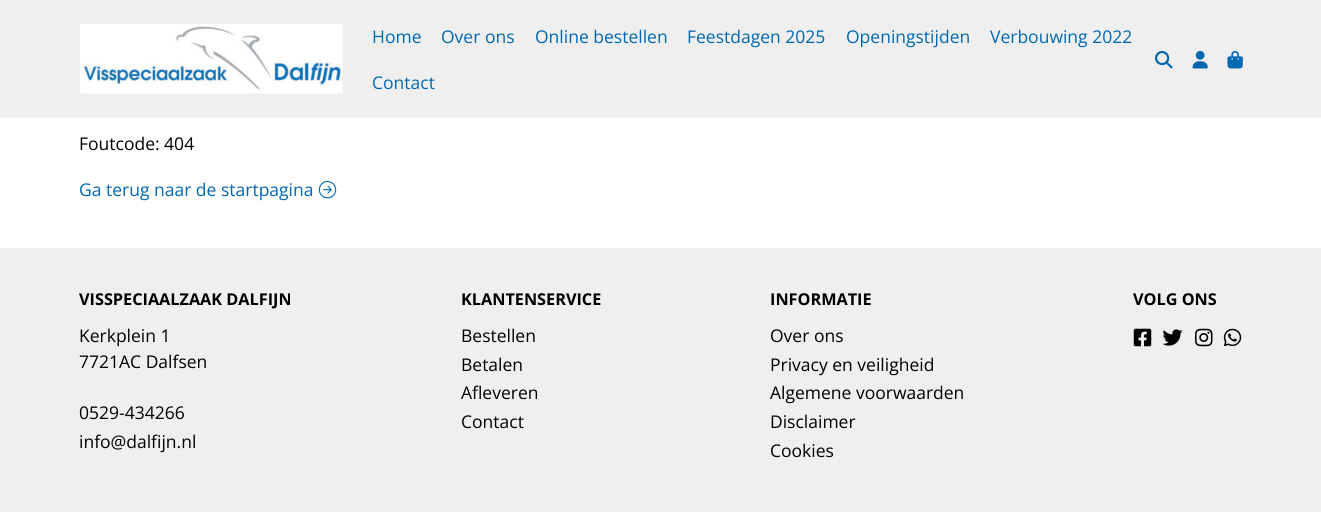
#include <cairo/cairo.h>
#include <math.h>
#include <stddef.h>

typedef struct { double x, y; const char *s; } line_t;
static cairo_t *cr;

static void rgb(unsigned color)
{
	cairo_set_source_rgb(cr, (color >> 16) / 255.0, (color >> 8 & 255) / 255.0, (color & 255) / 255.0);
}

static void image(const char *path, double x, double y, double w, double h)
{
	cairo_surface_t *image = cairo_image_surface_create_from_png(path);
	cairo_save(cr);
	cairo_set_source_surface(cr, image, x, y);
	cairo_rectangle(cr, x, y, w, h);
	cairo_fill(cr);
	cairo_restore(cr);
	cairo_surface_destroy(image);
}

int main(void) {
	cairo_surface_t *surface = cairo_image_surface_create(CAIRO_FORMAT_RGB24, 1321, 512);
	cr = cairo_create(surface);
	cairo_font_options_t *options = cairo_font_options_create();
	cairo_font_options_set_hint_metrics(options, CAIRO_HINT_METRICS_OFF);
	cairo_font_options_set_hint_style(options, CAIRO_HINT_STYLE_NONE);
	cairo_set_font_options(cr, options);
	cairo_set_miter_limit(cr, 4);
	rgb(0xffffff);
	cairo_paint(cr);
	rgb(0xefefef);
	cairo_rectangle(cr, 0, 0, 1321, 118);
	cairo_fill(cr);
	image("img/1.png", 80, 24, 263, 70);
	image("img/2.png", 1155, 50, 18, 19);
	image("img/3.png", 1192, 50, 16, 19);
	image("img/4.png", 1227, 51, 16, 18);
	image("img/5.png", 318, 180, 19, 19);
	cairo_rectangle(cr, 0, 248, 1321, 264);
	cairo_fill(cr);
	image("img/6.png", 1133, 328, 19, 19);
	image("img/7.png", 1162, 329, 21, 17);
	image("img/8.png", 1195, 328, 18, 19);
	image("img/9.png", 1223, 328, 19, 19);
	cairo_select_font_face(cr, "Open Sans", CAIRO_FONT_SLANT_NORMAL, CAIRO_FONT_WEIGHT_NORMAL);
	cairo_set_font_size(cr, 17.5);
	rgb(0x0068b1);
	{
		static const line_t items[] = {
			{372, 43, "Home"},
			{441, 43, "Over ons"},
			{535, 43, "Online bestellen"},
			{687, 43, "Feestdagen 2025"},
			{846, 43, "Openingstijden"},
			{990, 43, "Verbouwing 2022"},
			{372, 89, "Contact"},
		};
		for (size_t i = 0; i < sizeof items / sizeof *items; i++) {
			cairo_move_to(cr, items[i].x, items[i].y);
			cairo_show_text(cr, items[i].s);
		}
	}
	rgb(0x000000);
	cairo_move_to(cr, 79, 150);
	cairo_show_text(cr, "Foutcode: 404");
	rgb(0x0068b1);
	cairo_move_to(cr, 79, 196);
	cairo_show_text(cr, "Ga terug naar de startpagina");
	cairo_select_font_face(cr, "Open Sans", CAIRO_FONT_SLANT_NORMAL, CAIRO_FONT_WEIGHT_BOLD);
	cairo_set_font_size(cr, 16.25);
	rgb(0x000000);
	cairo_move_to(cr, 79, 305);
	cairo_show_text(cr, "VISSPECIAALZAAK DALFIJN");
	cairo_select_font_face(cr, "Open Sans", CAIRO_FONT_SLANT_NORMAL, CAIRO_FONT_WEIGHT_NORMAL);
	cairo_set_font_size(cr, 17.5);
	{
		static const line_t items[] = {
			{79, 342, "Kerkplein 1"},
			{79, 368, "7721AC Dalfsen"},
			{79, 419, "0529-434266"},
			{79, 448, "info@dalfijn.nl"},
		};
		for (size_t i = 0; i < sizeof items / sizeof *items; i++) {
			cairo_move_to(cr, items[i].x, items[i].y);
			cairo_show_text(cr, items[i].s);
		}
	}
	cairo_select_font_face(cr, "Open Sans", CAIRO_FONT_SLANT_NORMAL, CAIRO_FONT_WEIGHT_BOLD);
	cairo_set_font_size(cr, 16.25);
	cairo_move_to(cr, 461, 305);
	cairo_show_text(cr, "KLANTENSERVICE");
	cairo_select_font_face(cr, "Open Sans", CAIRO_FONT_SLANT_NORMAL, CAIRO_FONT_WEIGHT_NORMAL);
	cairo_set_font_size(cr, 17.5);
	{
		static const line_t items[] = {
			{461, 342, "Bestellen"},
			{461, 371, "Betalen"},
			{461, 399, "Afleveren"},
			{461, 428, "Contact"},
		};
		for (size_t i = 0; i < sizeof items / sizeof *items; i++) {
			cairo_move_to(cr, items[i].x, items[i].y);
			cairo_show_text(cr, items[i].s);
		}
	}
	cairo_select_font_face(cr, "Open Sans", CAIRO_FONT_SLANT_NORMAL, CAIRO_FONT_WEIGHT_BOLD);
	cairo_set_font_size(cr, 16.25);
	cairo_move_to(cr, 770, 305);
	cairo_show_text(cr, "INFORMATIE");
	cairo_select_font_face(cr, "Open Sans", CAIRO_FONT_SLANT_NORMAL, CAIRO_FONT_WEIGHT_NORMAL);
	cairo_set_font_size(cr, 17.5);
	{
		static const line_t items[] = {
			{770, 342, "Over ons"},
			{770, 371, "Privacy en veiligheid"},
			{770, 399, "Algemene voorwaarden"},
			{770, 428, "Disclaimer"},
			{770, 457, "Cookies"},
		};
		for (size_t i = 0; i < sizeof items / sizeof *items; i++) {
			cairo_move_to(cr, items[i].x, items[i].y);
			cairo_show_text(cr, items[i].s);
		}
	}
	cairo_select_font_face(cr, "Open Sans", CAIRO_FONT_SLANT_NORMAL, CAIRO_FONT_WEIGHT_BOLD);
	cairo_set_font_size(cr, 16.25);
	cairo_move_to(cr, 1133, 305);
	cairo_show_text(cr, "VOLG ONS");
	cairo_surface_write_to_png(surface, "page.png");
	cairo_font_options_destroy(options);
	cairo_destroy(cr);
	cairo_surface_destroy(surface);
	return 0;
}
